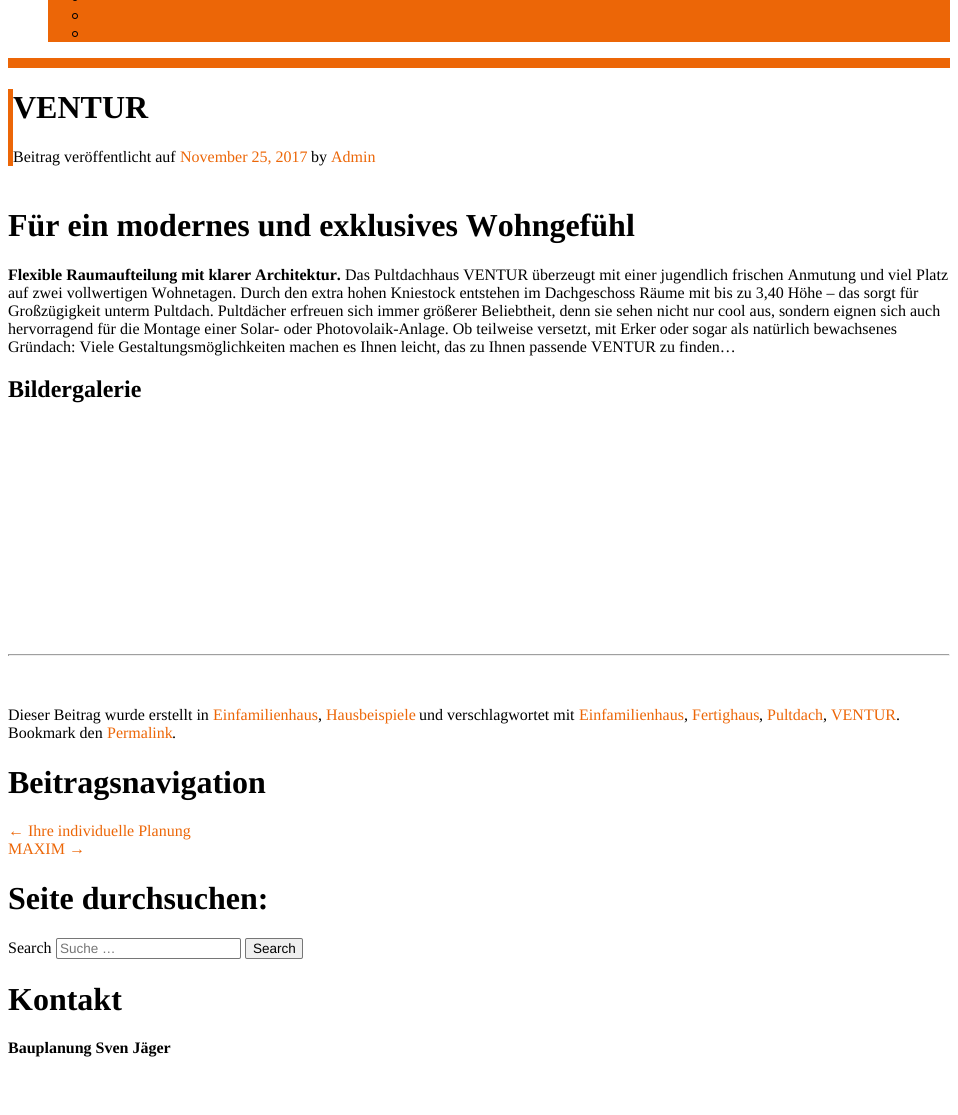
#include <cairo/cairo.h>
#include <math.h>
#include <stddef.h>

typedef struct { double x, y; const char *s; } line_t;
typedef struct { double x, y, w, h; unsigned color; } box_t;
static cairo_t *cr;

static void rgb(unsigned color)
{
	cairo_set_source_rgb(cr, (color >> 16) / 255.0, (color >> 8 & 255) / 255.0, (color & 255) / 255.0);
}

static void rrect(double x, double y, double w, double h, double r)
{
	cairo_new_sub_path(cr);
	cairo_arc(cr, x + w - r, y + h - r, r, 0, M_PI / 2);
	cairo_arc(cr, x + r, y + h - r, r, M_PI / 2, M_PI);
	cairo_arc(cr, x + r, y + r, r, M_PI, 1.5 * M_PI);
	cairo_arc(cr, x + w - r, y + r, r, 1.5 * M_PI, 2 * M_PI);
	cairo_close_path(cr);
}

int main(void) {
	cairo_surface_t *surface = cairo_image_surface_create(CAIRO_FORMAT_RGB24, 958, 1115);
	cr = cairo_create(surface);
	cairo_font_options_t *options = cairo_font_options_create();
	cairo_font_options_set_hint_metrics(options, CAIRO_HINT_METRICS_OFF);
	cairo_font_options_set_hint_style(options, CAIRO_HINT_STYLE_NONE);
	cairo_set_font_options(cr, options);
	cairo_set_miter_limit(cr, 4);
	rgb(0xffffff);
	cairo_paint(cr);
	rgb(0xec6607);
	cairo_rectangle(cr, 8, 58, 942, 10);
	cairo_fill(cr);
	cairo_rectangle(cr, 48, 0, 902, 42);
	cairo_fill(cr);
	rrect(72.5, -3.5, 5, 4, 2.5);
	rgb(0x000000);
	cairo_set_line_width(cr, 1);
	cairo_stroke(cr);
	cairo_arc(cr, 75, 16, 2.5, 0, 2 * M_PI);
	cairo_stroke(cr);
	cairo_arc(cr, 75, 34, 2.5, 0, 2 * M_PI);
	cairo_stroke(cr);
	{
		static const box_t items[] = {
			{8, 89, 5, 77, 0xec6607},
			{8, 654, 942, 1, 0x9f9f9f},
			{949, 654, 1, 2, 0xeeeeee},
			{8, 655, 942, 1, 0xeeeeee},
			{8, 654, 1, 2, 0x9f9f9f},
		};
		for (size_t i = 0; i < sizeof items / sizeof *items; i++) {
			rgb(items[i].color);
			cairo_rectangle(cr, items[i].x, items[i].y, items[i].w, items[i].h);
			cairo_fill(cr);
		}
	}
	rrect(56.5, 938.5, 184, 20, 1.5);
	rgb(0x767676);
	cairo_stroke(cr);
	rgb(0xefefef);
	rrect(245.5, 938.5, 57, 20, 1.5);
	cairo_fill_preserve(cr);
	rgb(0x767676);
	cairo_stroke(cr);
	cairo_select_font_face(cr, "Liberation Serif", CAIRO_FONT_SLANT_NORMAL, CAIRO_FONT_WEIGHT_BOLD);
	cairo_set_font_size(cr, 32);
	rgb(0x000000);
	cairo_move_to(cr, 13, 118);
	cairo_show_text(cr, "VENTUR");
	cairo_select_font_face(cr, "Liberation Serif", CAIRO_FONT_SLANT_NORMAL, CAIRO_FONT_WEIGHT_NORMAL);
	cairo_set_font_size(cr, 16);
	cairo_move_to(cr, 13, 162);
	cairo_show_text(cr, "Beitrag veröffentlicht auf");
	rgb(0xec6607);
	cairo_move_to(cr, 180, 162);
	cairo_show_text(cr, "November 25, 2017");
	rgb(0x000000);
	cairo_move_to(cr, 311, 162);
	cairo_show_text(cr, "by");
	rgb(0xec6607);
	cairo_move_to(cr, 331, 162);
	cairo_show_text(cr, "Admin");
	cairo_select_font_face(cr, "Liberation Serif", CAIRO_FONT_SLANT_NORMAL, CAIRO_FONT_WEIGHT_BOLD);
	cairo_set_font_size(cr, 32);
	rgb(0x000000);
	cairo_move_to(cr, 8, 236);
	cairo_show_text(cr, "Für ein modernes und exklusives Wohngefühl");
	cairo_set_font_size(cr, 16);
	cairo_move_to(cr, 8, 280);
	cairo_show_text(cr, "Flexible Raumaufteilung mit klarer Architektur.");
	cairo_select_font_face(cr, "Liberation Serif", CAIRO_FONT_SLANT_NORMAL, CAIRO_FONT_WEIGHT_NORMAL);
	{
		static const line_t items[] = {
			{345, 280, "Das Pultdachhaus VENTUR überzeugt mit einer jugendlich frischen Anmutung und viel Platz"},
			{8, 298, "auf zwei vollwertigen Wohnetagen. Durch den extra hohen Kniestock entstehen im Dachgeschoss Räume mit bis zu 3,40 Höhe – das sorgt für"},
			{8, 316, "Großzügigkeit unterm Pultdach. Pultdächer erfreuen sich immer größerer Beliebtheit, denn sie sehen nicht nur cool aus, sondern eignen sich auch"},
			{8, 334, "hervorragend für die Montage einer Solar- oder Photovolaik-Anlage. Ob teilweise versetzt, mit Erker oder sogar als natürlich bewachsenes"},
			{8, 352, "Gründach: Viele Gestaltungsmöglichkeiten machen es Ihnen leicht, das zu Ihnen passende VENTUR zu finden…"},
		};
		for (size_t i = 0; i < sizeof items / sizeof *items; i++) {
			cairo_move_to(cr, items[i].x, items[i].y);
			cairo_show_text(cr, items[i].s);
		}
	}
	cairo_select_font_face(cr, "Liberation Serif", CAIRO_FONT_SLANT_NORMAL, CAIRO_FONT_WEIGHT_BOLD);
	cairo_set_font_size(cr, 24);
	cairo_move_to(cr, 8, 397);
	cairo_show_text(cr, "Bildergalerie");
	cairo_select_font_face(cr, "Liberation Serif", CAIRO_FONT_SLANT_NORMAL, CAIRO_FONT_WEIGHT_NORMAL);
	cairo_set_font_size(cr, 16);
	cairo_move_to(cr, 8, 720);
	cairo_show_text(cr, "Dieser Beitrag wurde erstellt in");
	rgb(0xec6607);
	cairo_move_to(cr, 213, 720);
	cairo_show_text(cr, "Einfamilienhaus");
	rgb(0x000000);
	cairo_move_to(cr, 318, 720);
	cairo_show_text(cr, ",");
	rgb(0xec6607);
	cairo_move_to(cr, 326, 720);
	cairo_show_text(cr, "Hausbeispiele");
	rgb(0x000000);
	cairo_move_to(cr, 419, 720);
	cairo_show_text(cr, "und verschlagwortet mit");
	rgb(0xec6607);
	cairo_move_to(cr, 579, 720);
	cairo_show_text(cr, "Einfamilienhaus");
	rgb(0x000000);
	cairo_move_to(cr, 684, 720);
	cairo_show_text(cr, ",");
	rgb(0xec6607);
	cairo_move_to(cr, 692, 720);
	cairo_show_text(cr, "Fertighaus");
	rgb(0x000000);
	cairo_move_to(cr, 759, 720);
	cairo_show_text(cr, ",");
	rgb(0xec6607);
	cairo_move_to(cr, 767, 720);
	cairo_show_text(cr, "Pultdach");
	rgb(0x000000);
	cairo_move_to(cr, 823, 720);
	cairo_show_text(cr, ",");
	rgb(0xec6607);
	cairo_move_to(cr, 831, 720);
	cairo_show_text(cr, "VENTUR");
	rgb(0x000000);
	cairo_move_to(cr, 896, 720);
	cairo_show_text(cr, ".");
	cairo_move_to(cr, 8, 738);
	cairo_show_text(cr, "Bookmark den");
	rgb(0xec6607);
	cairo_move_to(cr, 107, 738);
	cairo_show_text(cr, "Permalink");
	rgb(0x000000);
	cairo_move_to(cr, 172, 738);
	cairo_show_text(cr, ".");
	cairo_select_font_face(cr, "Liberation Serif", CAIRO_FONT_SLANT_NORMAL, CAIRO_FONT_WEIGHT_BOLD);
	cairo_set_font_size(cr, 32);
	cairo_move_to(cr, 8, 793);
	cairo_show_text(cr, "Beitragsnavigation");
	cairo_select_font_face(cr, "Liberation Serif", CAIRO_FONT_SLANT_NORMAL, CAIRO_FONT_WEIGHT_NORMAL);
	cairo_set_font_size(cr, 16);
	rgb(0xec6607);
	cairo_move_to(cr, 8, 836);
	cairo_show_text(cr, "← Ihre individuelle Planung");
	cairo_move_to(cr, 8, 854);
	cairo_show_text(cr, "MAXIM →");
	cairo_select_font_face(cr, "Liberation Serif", CAIRO_FONT_SLANT_NORMAL, CAIRO_FONT_WEIGHT_BOLD);
	cairo_set_font_size(cr, 32);
	rgb(0x000000);
	cairo_move_to(cr, 8, 909);
	cairo_show_text(cr, "Seite durchsuchen:");
	cairo_select_font_face(cr, "Liberation Serif", CAIRO_FONT_SLANT_NORMAL, CAIRO_FONT_WEIGHT_NORMAL);
	cairo_set_font_size(cr, 16);
	cairo_move_to(cr, 8, 953);
	cairo_show_text(cr, "Search");
	cairo_select_font_face(cr, "Liberation Sans", CAIRO_FONT_SLANT_NORMAL, CAIRO_FONT_WEIGHT_NORMAL);
	cairo_set_font_size(cr, 13.5);
	rgb(0x757575);
	cairo_move_to(cr, 60, 953);
	cairo_show_text(cr, "Suche …");
	rgb(0x000000);
	cairo_move_to(cr, 253, 953);
	cairo_show_text(cr, "Search");
	cairo_select_font_face(cr, "Liberation Serif", CAIRO_FONT_SLANT_NORMAL, CAIRO_FONT_WEIGHT_BOLD);
	cairo_set_font_size(cr, 32);
	cairo_move_to(cr, 8, 1010);
	cairo_show_text(cr, "Kontakt");
	cairo_set_font_size(cr, 16);
	cairo_move_to(cr, 8, 1053);
	cairo_show_text(cr, "Bauplanung Sven Jäger");
	cairo_surface_write_to_png(surface, "page.png");
	cairo_font_options_destroy(options);
	cairo_destroy(cr);
	cairo_surface_destroy(surface);
	return 0;
}
